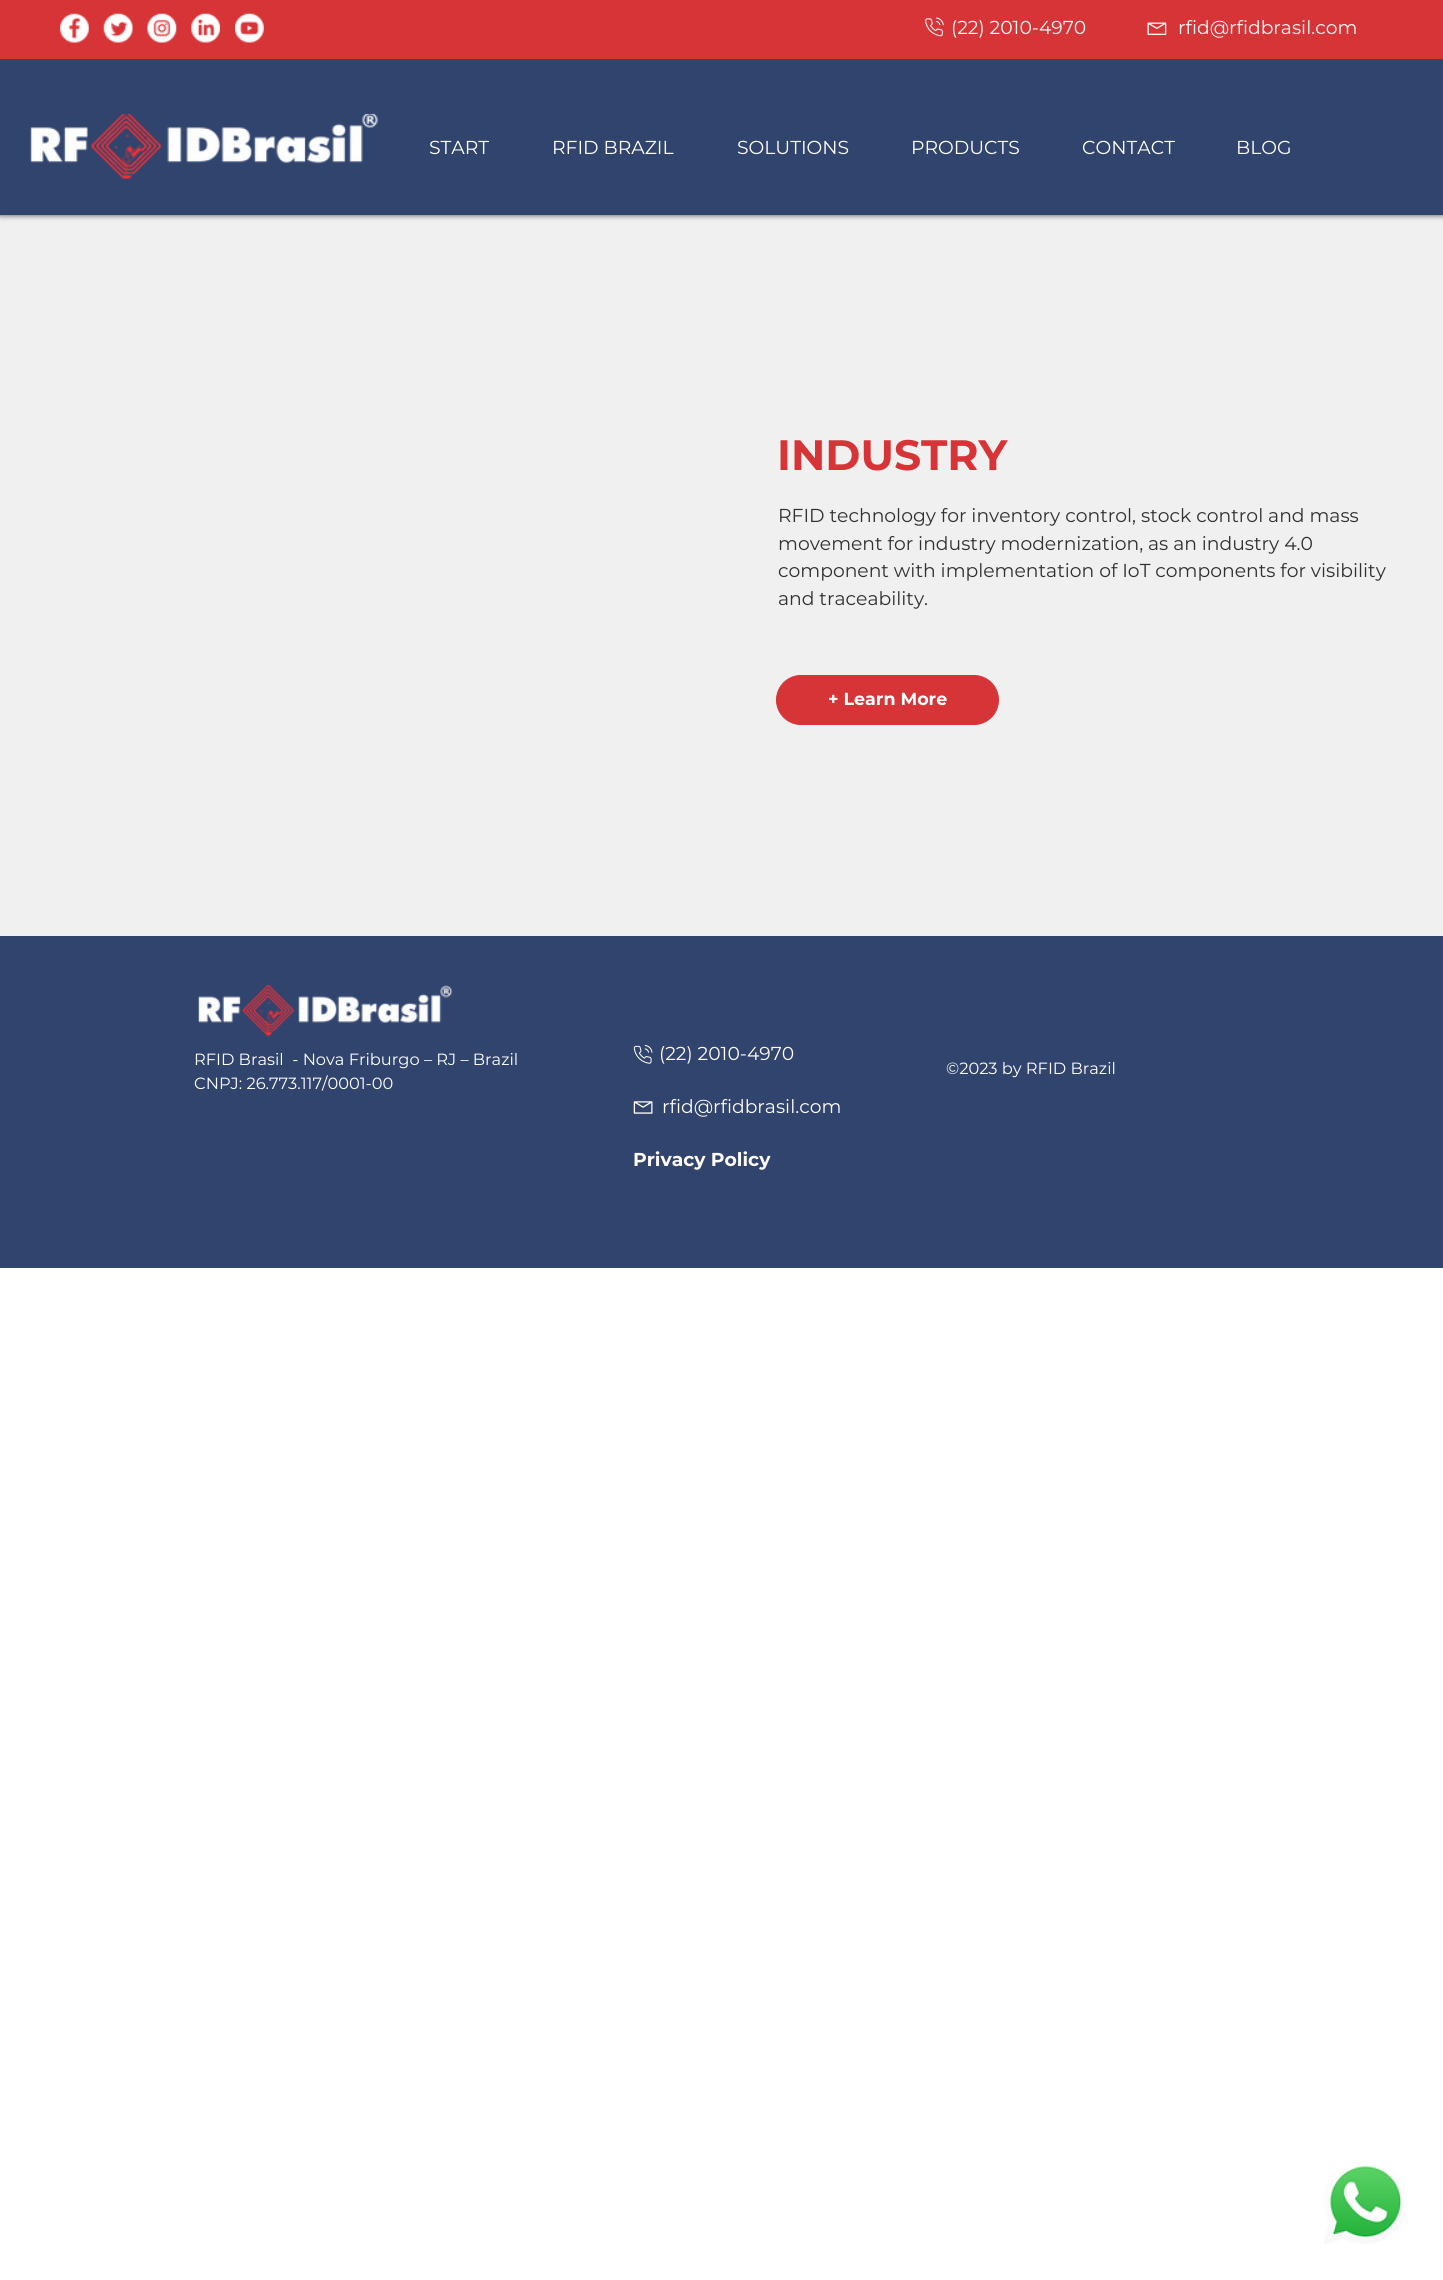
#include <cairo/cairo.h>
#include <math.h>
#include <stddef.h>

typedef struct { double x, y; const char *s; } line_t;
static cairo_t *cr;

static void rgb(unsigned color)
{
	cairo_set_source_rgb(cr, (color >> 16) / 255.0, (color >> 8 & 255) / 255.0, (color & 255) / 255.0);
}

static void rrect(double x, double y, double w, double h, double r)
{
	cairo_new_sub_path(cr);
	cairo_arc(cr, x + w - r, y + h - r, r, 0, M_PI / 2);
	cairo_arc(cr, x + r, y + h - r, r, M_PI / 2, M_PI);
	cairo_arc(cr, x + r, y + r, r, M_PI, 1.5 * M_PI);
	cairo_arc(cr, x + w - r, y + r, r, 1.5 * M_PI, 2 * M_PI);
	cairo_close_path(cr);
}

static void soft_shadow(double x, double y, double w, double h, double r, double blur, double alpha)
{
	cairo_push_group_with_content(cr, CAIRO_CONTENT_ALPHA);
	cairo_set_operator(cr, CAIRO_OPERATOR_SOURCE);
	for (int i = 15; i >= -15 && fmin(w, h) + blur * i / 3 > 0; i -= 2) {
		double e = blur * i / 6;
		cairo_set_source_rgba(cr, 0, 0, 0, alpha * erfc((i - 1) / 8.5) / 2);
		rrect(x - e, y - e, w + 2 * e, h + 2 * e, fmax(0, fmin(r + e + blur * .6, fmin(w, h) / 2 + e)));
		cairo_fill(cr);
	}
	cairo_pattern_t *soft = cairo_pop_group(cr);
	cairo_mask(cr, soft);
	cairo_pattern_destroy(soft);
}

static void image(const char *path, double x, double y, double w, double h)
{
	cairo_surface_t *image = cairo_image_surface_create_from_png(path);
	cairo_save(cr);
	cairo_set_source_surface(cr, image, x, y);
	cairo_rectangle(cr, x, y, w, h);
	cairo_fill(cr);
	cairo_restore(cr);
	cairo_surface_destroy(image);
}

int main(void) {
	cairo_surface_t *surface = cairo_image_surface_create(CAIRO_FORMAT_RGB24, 1443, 2280);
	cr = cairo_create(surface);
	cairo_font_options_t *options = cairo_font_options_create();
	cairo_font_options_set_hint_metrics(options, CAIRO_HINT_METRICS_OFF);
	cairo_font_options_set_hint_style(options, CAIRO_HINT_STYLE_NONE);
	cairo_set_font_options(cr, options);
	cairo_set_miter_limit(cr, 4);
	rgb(0xffffff);
	cairo_paint(cr);
	rgb(0xf0f0f0);
	cairo_rectangle(cr, 0, 215, 1443, 721);
	cairo_fill(cr);
	rgb(0x000000);
	soft_shadow(0, 0, 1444, 215, 0, 3, 0.7);
	rgb(0x30446e);
	cairo_rectangle(cr, 0, 59, 1443, 156);
	cairo_fill(cr);
	rgb(0xd73438);
	cairo_rectangle(cr, 0, 0, 1443, 59);
	cairo_fill(cr);
	image("img/1.png", 60, 13, 29, 30);
	image("img/2.png", 103, 13, 30, 30);
	image("img/3.png", 147, 13, 30, 30);
	image("img/4.png", 191, 13, 29, 30);
	image("img/5.png", 235, 13, 29, 30);
	image("img/6.png", 925, 17, 19, 20);
	image("img/7.png", 1147, 22, 20, 13);
	image("img/8.png", 30, 113, 348, 66);
	rrect(776.5, 675.5, 222, 49, 24.5);
	cairo_fill_preserve(cr);
	cairo_set_line_width(cr, 1);
	cairo_stroke(cr);
	rgb(0x30446e);
	cairo_rectangle(cr, 0, 936, 1443, 332);
	cairo_fill(cr);
	image("img/9.png", 198, 984, 255, 53);
	image("img/10.png", 633, 1045, 20, 19);
	image("img/11.png", 633, 1101, 20, 13);
	image("img/12.png", 1324, 2166, 82, 78);
	cairo_select_font_face(cr, "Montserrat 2", CAIRO_FONT_SLANT_NORMAL, CAIRO_FONT_WEIGHT_NORMAL);
	cairo_set_font_size(cr, 18.75);
	rgb(0xfffcf7);
	cairo_move_to(cr, 951, 34);
	cairo_show_text(cr, "(22) 2010-4970");
	cairo_move_to(cr, 1178, 34);
	cairo_show_text(cr, "rfid@rfidbrasil.com");
	cairo_select_font_face(cr, "Montserrat", CAIRO_FONT_SLANT_NORMAL, CAIRO_FONT_WEIGHT_NORMAL);
	rgb(0xffffff);
	{
		static const line_t items[] = {
			{429, 154, "START"},
			{552, 154, "RFID BRAZIL"},
			{737, 154, "SOLUTIONS"},
			{911, 154, "PRODUCTS"},
			{1082, 154, "CONTACT"},
			{1236, 154, "BLOG"},
		};
		for (size_t i = 0; i < sizeof items / sizeof *items; i++) {
			cairo_move_to(cr, items[i].x, items[i].y);
			cairo_show_text(cr, items[i].s);
		}
	}
	cairo_select_font_face(cr, "Montserrat", CAIRO_FONT_SLANT_NORMAL, CAIRO_FONT_WEIGHT_BOLD);
	cairo_set_font_size(cr, 42.5);
	rgb(0xd73438);
	cairo_move_to(cr, 777, 470);
	cairo_show_text(cr, "INDUSTRY");
	cairo_select_font_face(cr, "Montserrat", CAIRO_FONT_SLANT_NORMAL, CAIRO_FONT_WEIGHT_NORMAL);
	cairo_set_font_size(cr, 18.75);
	rgb(0x303030);
	{
		static const line_t items[] = {
			{778, 522, "RFID technology for inventory control, stock control and mass"},
			{778, 550, "movement for industry modernization, as an industry 4.0"},
			{778, 577, "component with implementation of IoT components for visibility"},
			{778, 605, "and traceability."},
		};
		for (size_t i = 0; i < sizeof items / sizeof *items; i++) {
			cairo_move_to(cr, items[i].x, items[i].y);
			cairo_show_text(cr, items[i].s);
		}
	}
	cairo_select_font_face(cr, "Montserrat", CAIRO_FONT_SLANT_NORMAL, CAIRO_FONT_WEIGHT_BOLD);
	cairo_set_font_size(cr, 17.5);
	rgb(0xffffff);
	cairo_move_to(cr, 828, 705);
	cairo_show_text(cr, "+ Learn More");
	cairo_select_font_face(cr, "Montserrat", CAIRO_FONT_SLANT_NORMAL, CAIRO_FONT_WEIGHT_NORMAL);
	cairo_set_font_size(cr, 16.25);
	cairo_move_to(cr, 194, 1065);
	cairo_show_text(cr, "RFID Brasil  - Nova Friburgo – RJ – Brazil");
	cairo_move_to(cr, 194, 1089);
	cairo_show_text(cr, "CNPJ: 26.773.117/0001-00");
	cairo_select_font_face(cr, "Montserrat 2", CAIRO_FONT_SLANT_NORMAL, CAIRO_FONT_WEIGHT_NORMAL);
	cairo_set_font_size(cr, 18.75);
	rgb(0xfffcf7);
	cairo_move_to(cr, 659, 1060);
	cairo_show_text(cr, "(22) 2010-4970");
	cairo_move_to(cr, 662, 1113);
	cairo_show_text(cr, "rfid@rfidbrasil.com");
	cairo_select_font_face(cr, "Montserrat", CAIRO_FONT_SLANT_NORMAL, CAIRO_FONT_WEIGHT_BOLD);
	cairo_move_to(cr, 633, 1166);
	cairo_show_text(cr, "Privacy Policy");
	cairo_select_font_face(cr, "Montserrat", CAIRO_FONT_SLANT_NORMAL, CAIRO_FONT_WEIGHT_NORMAL);
	cairo_set_font_size(cr, 16.25);
	rgb(0xffffff);
	cairo_move_to(cr, 946, 1074);
	cairo_show_text(cr, "©2023 by RFID Brazil");
	cairo_surface_write_to_png(surface, "page.png");
	cairo_font_options_destroy(options);
	cairo_destroy(cr);
	cairo_surface_destroy(surface);
	return 0;
}
